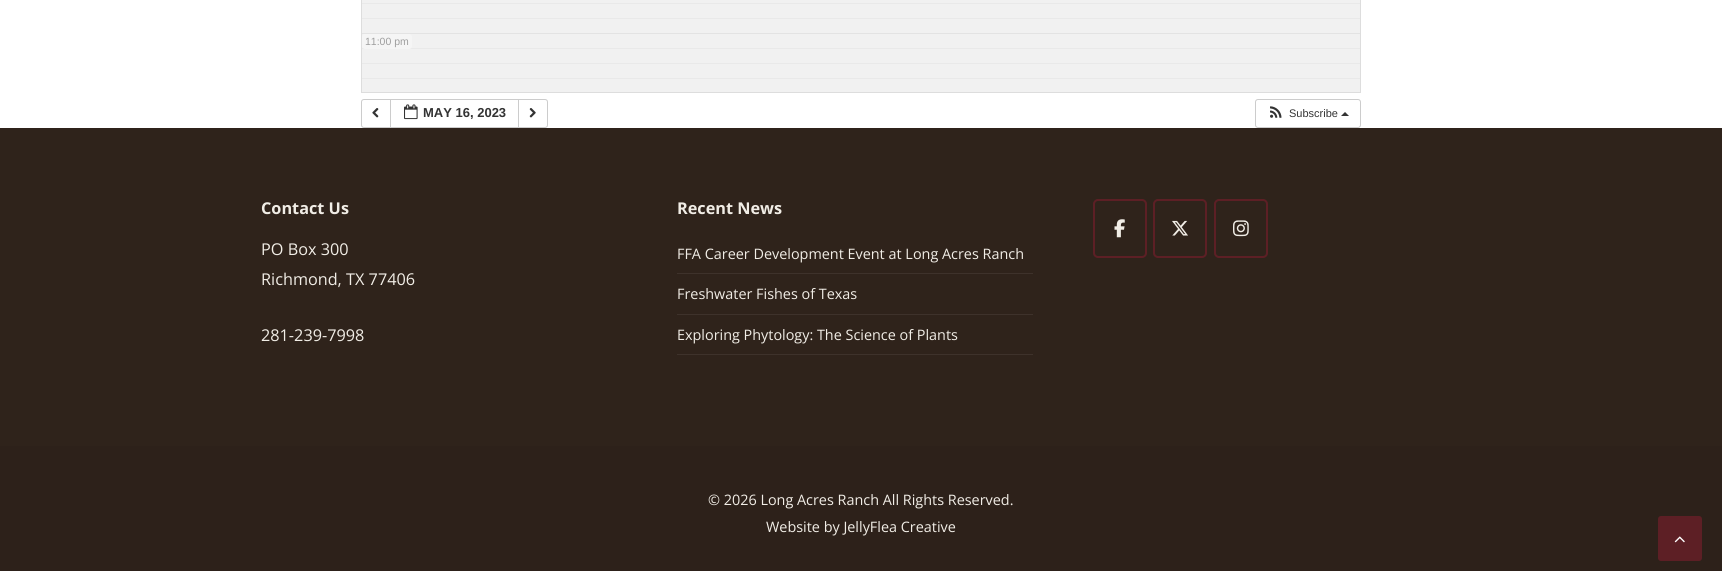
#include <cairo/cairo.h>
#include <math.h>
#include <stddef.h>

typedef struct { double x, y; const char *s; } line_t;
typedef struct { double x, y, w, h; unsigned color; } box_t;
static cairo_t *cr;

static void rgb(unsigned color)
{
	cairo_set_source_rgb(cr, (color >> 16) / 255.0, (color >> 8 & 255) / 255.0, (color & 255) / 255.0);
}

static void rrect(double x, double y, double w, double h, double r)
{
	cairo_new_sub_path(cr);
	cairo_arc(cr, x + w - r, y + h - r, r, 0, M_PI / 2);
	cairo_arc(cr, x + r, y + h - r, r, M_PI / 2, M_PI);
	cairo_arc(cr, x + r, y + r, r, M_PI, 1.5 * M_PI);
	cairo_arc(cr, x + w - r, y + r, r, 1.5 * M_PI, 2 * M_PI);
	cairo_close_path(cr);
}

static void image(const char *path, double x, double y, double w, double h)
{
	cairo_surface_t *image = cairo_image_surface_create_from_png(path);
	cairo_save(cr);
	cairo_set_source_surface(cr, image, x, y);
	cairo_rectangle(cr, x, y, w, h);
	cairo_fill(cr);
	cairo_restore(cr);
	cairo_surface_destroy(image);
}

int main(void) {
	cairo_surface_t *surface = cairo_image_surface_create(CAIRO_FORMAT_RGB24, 1722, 571);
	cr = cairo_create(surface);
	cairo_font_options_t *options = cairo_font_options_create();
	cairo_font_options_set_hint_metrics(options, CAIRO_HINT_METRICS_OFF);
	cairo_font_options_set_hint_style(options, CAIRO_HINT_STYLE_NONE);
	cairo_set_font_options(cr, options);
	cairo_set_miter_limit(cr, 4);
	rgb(0xffffff);
	cairo_paint(cr);
	{
		static const box_t items[] = {
			{362, 34, 998, 58, 0xf1f1f1},
			{361, 78, 1000, 1, 0xe9e9e9},
			{361, 63, 1000, 1, 0xe9e9e9},
			{361, 48, 1000, 1, 0xe9e9e9},
			{361, 33, 1000, 1, 0xe3e3e3},
			{362, 0, 998, 33, 0xf1f1f1},
			{361, 18, 1000, 1, 0xe9e9e9},
			{361, 3, 1000, 1, 0xe9e9e9},
			{361, 92, 1000, 1, 0xdddddd},
			{1360, 0, 1, 92, 0xdddddd},
			{361, 0, 1, 92, 0xdddddd},
		};
		for (size_t i = 0; i < sizeof items / sizeof *items; i++) {
			rgb(items[i].color);
			cairo_rectangle(cr, items[i].x, items[i].y, items[i].w, items[i].h);
			cairo_fill(cr);
		}
	}
	rgb(0xf5f5f5);
	rrect(362, 34, 50, 15, 3);
	cairo_fill(cr);
	cairo_new_path(cr);
	cairo_move_to(cr, 364, 99.5);
	cairo_line_to(cr, 390.5, 99.5);
	cairo_line_to(cr, 390.5, 127.5);
	cairo_line_to(cr, 364, 127.5);
	cairo_curve_to(cr, 362.5, 127.5, 361.5, 126.5, 361.5, 125);
	cairo_line_to(cr, 361.5, 102);
	cairo_curve_to(cr, 361.5, 100.5, 362.5, 99.5, 364, 99.5);
	cairo_close_path(cr);
	rgb(0xcccccc);
	cairo_set_line_width(cr, 1);
	cairo_stroke(cr);
	image("img/1.png", 372, 108, 7, 10);
	cairo_rectangle(cr, 390.5, 99.5, 128, 28);
	cairo_stroke(cr);
	image("img/2.png", 404, 104, 14, 16);
	rgb(0xffffff);
	cairo_new_path(cr);
	cairo_move_to(cr, 518.5, 99.5);
	cairo_line_to(cr, 545, 99.5);
	cairo_curve_to(cr, 546.5, 99.5, 547.5, 100.5, 547.5, 102);
	cairo_line_to(cr, 547.5, 125);
	cairo_curve_to(cr, 547.5, 126.5, 546.5, 127.5, 545, 127.5);
	cairo_line_to(cr, 518.5, 127.5);
	cairo_close_path(cr);
	cairo_fill_preserve(cr);
	rgb(0xcccccc);
	cairo_stroke(cr);
	image("img/3.png", 529, 108, 7, 10);
	rrect(1255.5, 99.5, 105, 28, 2.5);
	cairo_stroke(cr);
	image("img/4.png", 1270, 106, 12, 12);
	rgb(0x333333);
	cairo_new_path(cr);
	cairo_move_to(cr, 1349, 116);
	cairo_line_to(cr, 1341, 116);
	cairo_line_to(cr, 1345, 112);
	cairo_close_path(cr);
	cairo_fill(cr);
	{
		static const box_t items[] = {
			{0, 128, 1722, 318, 0x2f231b},
			{677, 273, 356, 1, 0x3e322b},
			{677, 314, 356, 1, 0x3e322b},
			{677, 354, 356, 1, 0x3e322b},
		};
		for (size_t i = 0; i < sizeof items / sizeof *items; i++) {
			rgb(items[i].color);
			cairo_rectangle(cr, items[i].x, items[i].y, items[i].w, items[i].h);
			cairo_fill(cr);
		}
	}
	rrect(1094, 200, 52, 57, 4);
	rgb(0x5d1f25);
	cairo_set_line_width(cr, 2);
	cairo_stroke(cr);
	image("img/5.png", 1114, 219, 11, 19);
	rrect(1154, 200, 52, 57, 4);
	cairo_stroke(cr);
	image("img/6.png", 1172, 220, 16, 16);
	rrect(1215, 200, 52, 57, 4);
	cairo_stroke(cr);
	image("img/7.png", 1233, 220, 16, 17);
	rgb(0x2d211a);
	cairo_rectangle(cr, 0, 446, 1722, 125);
	cairo_fill(cr);
	rgb(0x5d1f25);
	rrect(1658, 516, 44, 45, 3);
	cairo_fill(cr);
	image("img/8.png", 1674, 536, 11, 7);
	cairo_select_font_face(cr, "Liberation Sans", CAIRO_FONT_SLANT_NORMAL, CAIRO_FONT_WEIGHT_NORMAL);
	cairo_set_font_size(cr, 10.5);
	rgb(0x9e9e9e);
	cairo_move_to(cr, 365, 45);
	cairo_show_text(cr, "11:00 pm");
	cairo_select_font_face(cr, "Liberation Sans", CAIRO_FONT_SLANT_NORMAL, CAIRO_FONT_WEIGHT_BOLD);
	cairo_set_font_size(cr, 13);
	rgb(0x333333);
	cairo_move_to(cr, 423, 117);
	cairo_show_text(cr, "MAY 16, 2023");
	cairo_select_font_face(cr, "Liberation Sans", CAIRO_FONT_SLANT_NORMAL, CAIRO_FONT_WEIGHT_NORMAL);
	cairo_set_font_size(cr, 11);
	cairo_move_to(cr, 1289, 117);
	cairo_show_text(cr, "Subscribe");
	cairo_select_font_face(cr, "Open Sans", CAIRO_FONT_SLANT_NORMAL, CAIRO_FONT_WEIGHT_BOLD);
	cairo_set_font_size(cr, 16.25);
	rgb(0xf1ede6);
	cairo_move_to(cr, 261, 214);
	cairo_show_text(cr, "Contact Us");
	cairo_select_font_face(cr, "Open Sans", CAIRO_FONT_SLANT_NORMAL, CAIRO_FONT_WEIGHT_NORMAL);
	{
		static const line_t items[] = {
			{261, 255, "PO Box 300"},
			{261, 285, "Richmond, TX 77406"},
			{261, 341, "281-239-7998"},
		};
		for (size_t i = 0; i < sizeof items / sizeof *items; i++) {
			cairo_move_to(cr, items[i].x, items[i].y);
			cairo_show_text(cr, items[i].s);
		}
	}
	cairo_select_font_face(cr, "Open Sans", CAIRO_FONT_SLANT_NORMAL, CAIRO_FONT_WEIGHT_BOLD);
	cairo_move_to(cr, 677, 214);
	cairo_show_text(cr, "Recent News");
	cairo_select_font_face(cr, "Open Sans", CAIRO_FONT_SLANT_NORMAL, CAIRO_FONT_WEIGHT_NORMAL);
	cairo_set_font_size(cr, 14.4);
	{
		static const line_t items[] = {
			{677, 259, "FFA Career Development Event at Long Acres Ranch"},
			{677, 299, "Freshwater Fishes of Texas"},
			{677, 340, "Exploring Phytology: The Science of Plants"},
			{708, 505, "© 2026 Long Acres Ranch All Rights Reserved."},
			{766, 532, "Website by JellyFlea Creative"},
		};
		for (size_t i = 0; i < sizeof items / sizeof *items; i++) {
			cairo_move_to(cr, items[i].x, items[i].y);
			cairo_show_text(cr, items[i].s);
		}
	}
	cairo_surface_write_to_png(surface, "page.png");
	cairo_font_options_destroy(options);
	cairo_destroy(cr);
	cairo_surface_destroy(surface);
	return 0;
}
